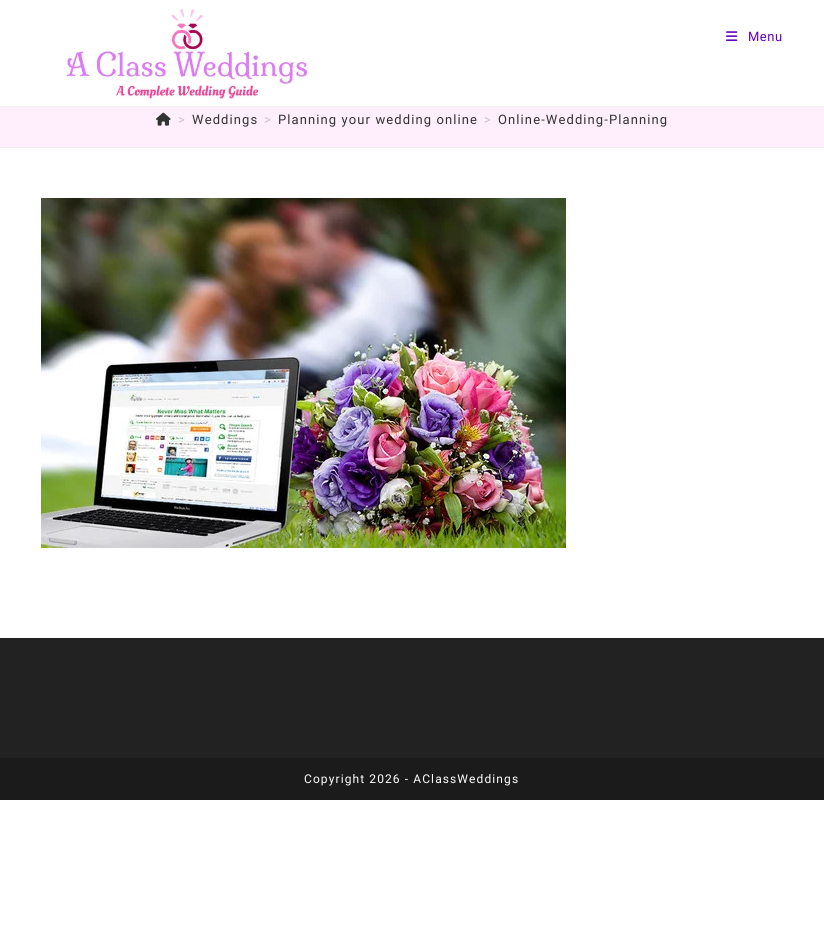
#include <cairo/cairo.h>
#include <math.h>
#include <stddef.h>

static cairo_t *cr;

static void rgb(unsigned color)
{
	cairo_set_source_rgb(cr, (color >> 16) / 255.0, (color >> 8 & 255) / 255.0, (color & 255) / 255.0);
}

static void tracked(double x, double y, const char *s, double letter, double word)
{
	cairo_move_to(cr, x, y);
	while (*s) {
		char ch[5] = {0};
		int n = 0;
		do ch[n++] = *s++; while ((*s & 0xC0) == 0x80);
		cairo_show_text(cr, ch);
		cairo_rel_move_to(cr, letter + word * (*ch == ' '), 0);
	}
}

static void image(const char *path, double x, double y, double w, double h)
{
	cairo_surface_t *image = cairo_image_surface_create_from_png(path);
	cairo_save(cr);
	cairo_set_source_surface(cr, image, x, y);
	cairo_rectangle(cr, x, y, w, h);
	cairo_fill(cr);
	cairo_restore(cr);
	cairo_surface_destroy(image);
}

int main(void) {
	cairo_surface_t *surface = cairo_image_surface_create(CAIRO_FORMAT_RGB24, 824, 951);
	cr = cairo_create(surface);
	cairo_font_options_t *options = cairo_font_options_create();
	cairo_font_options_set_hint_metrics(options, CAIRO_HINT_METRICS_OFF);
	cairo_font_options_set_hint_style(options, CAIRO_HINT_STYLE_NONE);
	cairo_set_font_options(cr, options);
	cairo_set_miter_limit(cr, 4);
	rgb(0xffffff);
	cairo_paint(cr);
	rgb(0xf1f1f1);
	cairo_rectangle(cr, 0, 106, 824, 1);
	cairo_fill(cr);
	image("img/1.png", 65, 9, 244, 90);
	image("img/2.png", 726, 31, 12, 10);
	rgb(0xffeffc);
	cairo_rectangle(cr, 0, 107, 824, 40);
	cairo_fill(cr);
	rgb(0xf1f1f1);
	cairo_rectangle(cr, 0, 147, 824, 1);
	cairo_fill(cr);
	image("img/3.png", 156, 112, 15, 14);
	image("img/4.png", 41, 198, 525, 350);
	rgb(0x222222);
	cairo_rectangle(cr, 0, 638, 824, 120);
	cairo_fill(cr);
	rgb(0x1b1b1b);
	cairo_rectangle(cr, 0, 758, 824, 42);
	cairo_fill(cr);
	cairo_select_font_face(cr, "Roboto", CAIRO_FONT_SLANT_NORMAL, CAIRO_FONT_WEIGHT_NORMAL);
	cairo_set_font_size(cr, 13);
	rgb(0x6200bf);
	tracked(748, 41, "Menu", 0.5, 0);
	rgb(0xc6c6c6);
	tracked(178, 124, ">", 1.1, 0);
	rgb(0x333333);
	tracked(192, 124, "Weddings", 1.1, 0);
	rgb(0xc6c6c6);
	tracked(264, 124, ">", 1.1, 0);
	rgb(0x333333);
	tracked(278, 124, "Planning your wedding online", 1.1, 0);
	rgb(0xc6c6c6);
	tracked(484, 124, ">", 1.1, 0);
	rgb(0x333333);
	tracked(498, 124, "Online-Wedding-Planning", 1.1, 0);
	cairo_set_font_size(cr, 12);
	rgb(0xffffff);
	tracked(304, 783, "Copyright 2026 - AClassWeddings", 1.1, 0);
	cairo_surface_write_to_png(surface, "page.png");
	cairo_font_options_destroy(options);
	cairo_destroy(cr);
	cairo_surface_destroy(surface);
	return 0;
}
